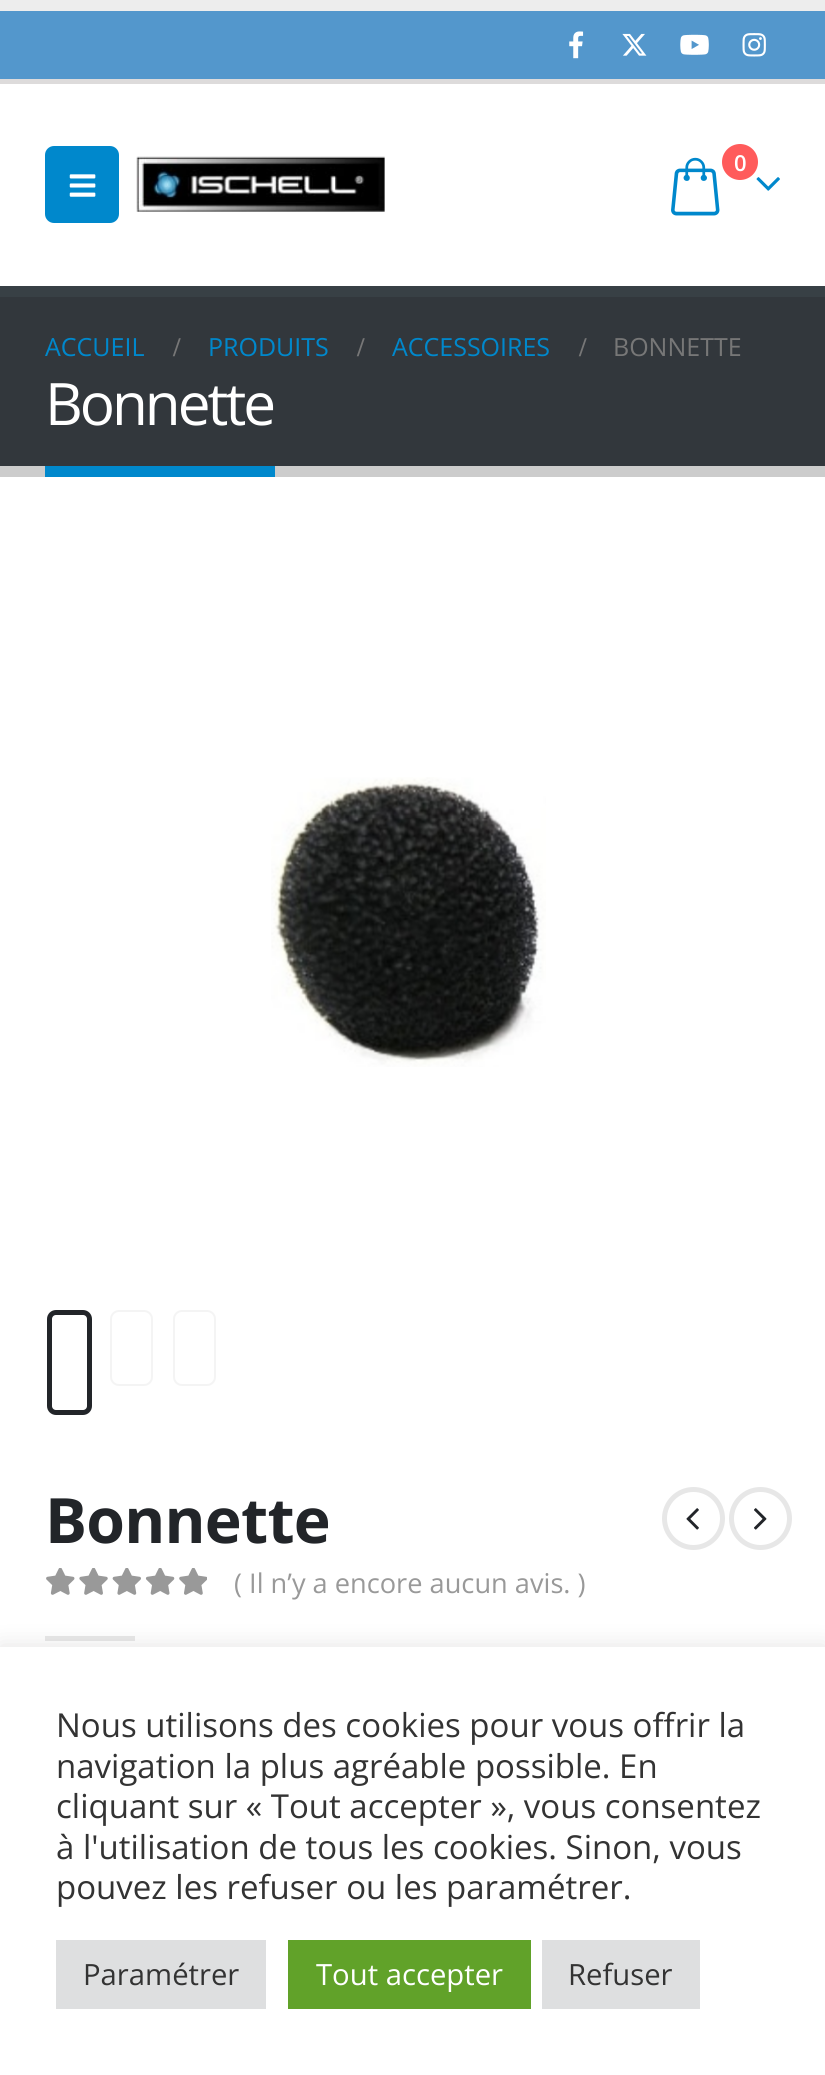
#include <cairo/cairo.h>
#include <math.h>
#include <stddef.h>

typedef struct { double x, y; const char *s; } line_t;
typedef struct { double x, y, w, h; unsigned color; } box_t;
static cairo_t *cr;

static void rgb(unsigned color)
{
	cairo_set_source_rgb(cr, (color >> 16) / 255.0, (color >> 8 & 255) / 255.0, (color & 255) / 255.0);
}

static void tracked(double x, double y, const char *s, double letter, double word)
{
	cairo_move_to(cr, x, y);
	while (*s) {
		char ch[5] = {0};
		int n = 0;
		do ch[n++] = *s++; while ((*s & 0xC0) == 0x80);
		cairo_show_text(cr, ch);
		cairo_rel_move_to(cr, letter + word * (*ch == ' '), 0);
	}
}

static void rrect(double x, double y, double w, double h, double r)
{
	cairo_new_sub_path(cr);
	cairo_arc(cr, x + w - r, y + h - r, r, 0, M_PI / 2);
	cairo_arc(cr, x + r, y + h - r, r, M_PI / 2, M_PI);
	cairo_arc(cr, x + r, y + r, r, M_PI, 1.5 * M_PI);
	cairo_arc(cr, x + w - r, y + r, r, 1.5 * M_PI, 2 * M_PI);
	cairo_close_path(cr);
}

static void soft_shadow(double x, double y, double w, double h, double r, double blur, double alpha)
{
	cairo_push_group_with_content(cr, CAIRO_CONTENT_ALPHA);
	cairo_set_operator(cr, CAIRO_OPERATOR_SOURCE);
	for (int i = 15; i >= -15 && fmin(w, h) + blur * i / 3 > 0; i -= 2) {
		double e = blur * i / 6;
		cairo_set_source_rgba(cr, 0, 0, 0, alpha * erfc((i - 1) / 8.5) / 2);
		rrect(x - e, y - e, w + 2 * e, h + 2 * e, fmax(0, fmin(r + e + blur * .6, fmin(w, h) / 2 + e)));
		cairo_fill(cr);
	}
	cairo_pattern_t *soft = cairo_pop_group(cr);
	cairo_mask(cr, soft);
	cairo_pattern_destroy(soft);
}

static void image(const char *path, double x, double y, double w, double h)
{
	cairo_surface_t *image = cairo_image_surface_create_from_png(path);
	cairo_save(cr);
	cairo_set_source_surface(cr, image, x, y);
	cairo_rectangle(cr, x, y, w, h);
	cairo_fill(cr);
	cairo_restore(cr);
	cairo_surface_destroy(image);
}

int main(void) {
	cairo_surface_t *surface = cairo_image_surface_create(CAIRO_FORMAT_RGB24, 825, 2075);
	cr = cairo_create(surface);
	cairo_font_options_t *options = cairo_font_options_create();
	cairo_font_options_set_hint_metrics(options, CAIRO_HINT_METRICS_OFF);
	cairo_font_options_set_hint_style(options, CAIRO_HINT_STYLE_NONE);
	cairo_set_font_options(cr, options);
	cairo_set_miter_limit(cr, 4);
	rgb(0xffffff);
	cairo_paint(cr);
	{
		static const box_t items[] = {
			{0, 0, 825, 11, 0xededed},
			{0, 11, 825, 68, 0x5397cc},
			{0, 79, 825, 5, 0xdddbdb},
		};
		for (size_t i = 0; i < sizeof items / sizeof *items; i++) {
			rgb(items[i].color);
			cairo_rectangle(cr, items[i].x, items[i].y, items[i].w, items[i].h);
			cairo_fill(cr);
		}
	}
	image("img/1.png", 569, 31, 15, 28);
	image("img/2.png", 622, 33, 25, 23);
	image("img/3.png", 680, 34, 29, 21);
	image("img/4.png", 742, 33, 24, 24);
	rgb(0x0088cc);
	rrect(45, 146, 74, 77, 9);
	cairo_fill(cr);
	image("img/5.png", 69, 174, 27, 23);
	image("img/6.png", 136, 156, 249, 56);
	image("img/7.png", 671, 157, 49, 59);
	image("img/8.png", 756, 177, 24, 14);
	rgb(0xff5b5b);
	cairo_arc(cr, 740, 162, 18, 0, 2 * M_PI);
	cairo_fill(cr);
	{
		static const box_t items[] = {
			{0, 297, 825, 169, 0x32373c},
			{0, 286, 825, 11, 0x384045},
			{0, 466, 825, 11, 0xcccccc},
			{45, 466, 230, 11, 0x0088cc},
		};
		for (size_t i = 0; i < sizeof items / sizeof *items; i++) {
			rgb(items[i].color);
			cairo_rectangle(cr, items[i].x, items[i].y, items[i].w, items[i].h);
			cairo_fill(cr);
		}
	}
	image("img/9.png", 271, 777, 275, 290);
	rrect(49.5, 1312.5, 40, 100, 6.5);
	rgb(0x222529);
	cairo_set_line_width(cr, 5);
	cairo_stroke(cr);
	rrect(111, 1311, 41, 74, 8);
	rgb(0xf4f4f4);
	cairo_set_line_width(cr, 2);
	cairo_stroke(cr);
	rrect(174, 1311, 41, 74, 8);
	cairo_stroke(cr);
	cairo_arc(cr, 693.5, 1518.5, 29, 0, 2 * M_PI);
	rgb(0xe7e7e7);
	cairo_set_line_width(cr, 5);
	cairo_stroke(cr);
	image("img/10.png", 686, 1508, 13, 22);
	cairo_arc(cr, 760.5, 1518.5, 29, 0, 2 * M_PI);
	cairo_stroke(cr);
	image("img/11.png", 754, 1508, 13, 22);
	image("img/12.png", 46, 1568, 161, 27);
	cairo_rectangle(cr, 45, 1636, 90, 5);
	cairo_fill(cr);
	rgb(0xacabab);
	soft_shadow(0, 1645, 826, 430, 0, 11, 0.3);
	{
		static const box_t items[] = {
			{0, 1647, 825, 428, 0xffffff},
			{56, 1940, 210, 69, 0xdedfe0},
			{288, 1940, 243, 69, 0x61a229},
			{542, 1940, 158, 69, 0xdedfe0},
		};
		for (size_t i = 0; i < sizeof items / sizeof *items; i++) {
			rgb(items[i].color);
			cairo_rectangle(cr, items[i].x, items[i].y, items[i].w, items[i].h);
			cairo_fill(cr);
		}
	}
	cairo_select_font_face(cr, "Open Sans SemiBold", CAIRO_FONT_SLANT_NORMAL, CAIRO_FONT_WEIGHT_NORMAL);
	cairo_set_font_size(cr, 22);
	rgb(0xffffff);
	cairo_move_to(cr, 734, 171);
	cairo_show_text(cr, "0");
	cairo_select_font_face(cr, "Open Sans", CAIRO_FONT_SLANT_NORMAL, CAIRO_FONT_WEIGHT_NORMAL);
	cairo_set_font_size(cr, 25);
	rgb(0x0088cc);
	cairo_move_to(cr, 45, 356);
	cairo_show_text(cr, "ACCUEIL");
	cairo_select_font_face(cr, "Liberation Serif", CAIRO_FONT_SLANT_NORMAL, CAIRO_FONT_WEIGHT_BOLD);
	cairo_set_font_size(cr, 27);
	rgb(0x777777);
	cairo_move_to(cr, 173, 356);
	cairo_show_text(cr, "/");
	cairo_select_font_face(cr, "Open Sans", CAIRO_FONT_SLANT_NORMAL, CAIRO_FONT_WEIGHT_NORMAL);
	cairo_set_font_size(cr, 25);
	rgb(0x0088cc);
	cairo_move_to(cr, 208, 356);
	cairo_show_text(cr, "PRODUITS");
	cairo_select_font_face(cr, "Liberation Serif", CAIRO_FONT_SLANT_NORMAL, CAIRO_FONT_WEIGHT_BOLD);
	cairo_set_font_size(cr, 27);
	rgb(0x777777);
	cairo_move_to(cr, 357, 356);
	cairo_show_text(cr, "/");
	cairo_select_font_face(cr, "Open Sans", CAIRO_FONT_SLANT_NORMAL, CAIRO_FONT_WEIGHT_NORMAL);
	cairo_set_font_size(cr, 25);
	rgb(0x0088cc);
	cairo_move_to(cr, 392, 356);
	cairo_show_text(cr, "ACCESSOIRES");
	cairo_select_font_face(cr, "Liberation Serif", CAIRO_FONT_SLANT_NORMAL, CAIRO_FONT_WEIGHT_BOLD);
	cairo_set_font_size(cr, 27);
	rgb(0x777777);
	cairo_move_to(cr, 579, 356);
	cairo_show_text(cr, "/");
	cairo_select_font_face(cr, "Open Sans", CAIRO_FONT_SLANT_NORMAL, CAIRO_FONT_WEIGHT_NORMAL);
	cairo_set_font_size(cr, 25);
	cairo_move_to(cr, 613, 356);
	cairo_show_text(cr, "BONNETTE");
	cairo_set_font_size(cr, 58.5);
	rgb(0xffffff);
	tracked(45, 425, "Bonnette", -3, 0);
	cairo_select_font_face(cr, "Open Sans", CAIRO_FONT_SLANT_NORMAL, CAIRO_FONT_WEIGHT_BOLD);
	cairo_set_font_size(cr, 62.5);
	rgb(0x222529);
	tracked(45, 1543, "Bonnette", -0.75, 0);
	cairo_select_font_face(cr, "Open Sans", CAIRO_FONT_SLANT_NORMAL, CAIRO_FONT_WEIGHT_NORMAL);
	cairo_set_font_size(cr, 27.2);
	rgb(0x999999);
	cairo_move_to(cr, 234, 1593);
	cairo_show_text(cr, "( Il n’y a encore aucun avis. )");
	cairo_set_font_size(cr, 33);
	rgb(0x333333);
	{
		static const line_t items[] = {
			{56, 1737, "Nous utilisons des cookies pour vous offrir la"},
			{56, 1778, "navigation la plus agréable possible. En"},
			{56, 1818, "cliquant sur « Tout accepter », vous consentez"},
			{56, 1859, "à l'utilisation de tous les cookies. Sinon, vous"},
			{56, 1899, "pouvez les refuser ou les paramétrer."},
		};
		for (size_t i = 0; i < sizeof items / sizeof *items; i++) {
			cairo_move_to(cr, items[i].x, items[i].y);
			cairo_show_text(cr, items[i].s);
		}
	}
	cairo_set_font_size(cr, 29.25);
	cairo_move_to(cr, 83, 1985);
	cairo_show_text(cr, "Paramétrer");
	rgb(0xffffff);
	cairo_move_to(cr, 316, 1985);
	cairo_show_text(cr, "Tout accepter");
	rgb(0x333333);
	cairo_move_to(cr, 568, 1985);
	cairo_show_text(cr, "Refuser");
	cairo_surface_write_to_png(surface, "page.png");
	cairo_font_options_destroy(options);
	cairo_destroy(cr);
	cairo_surface_destroy(surface);
	return 0;
}
